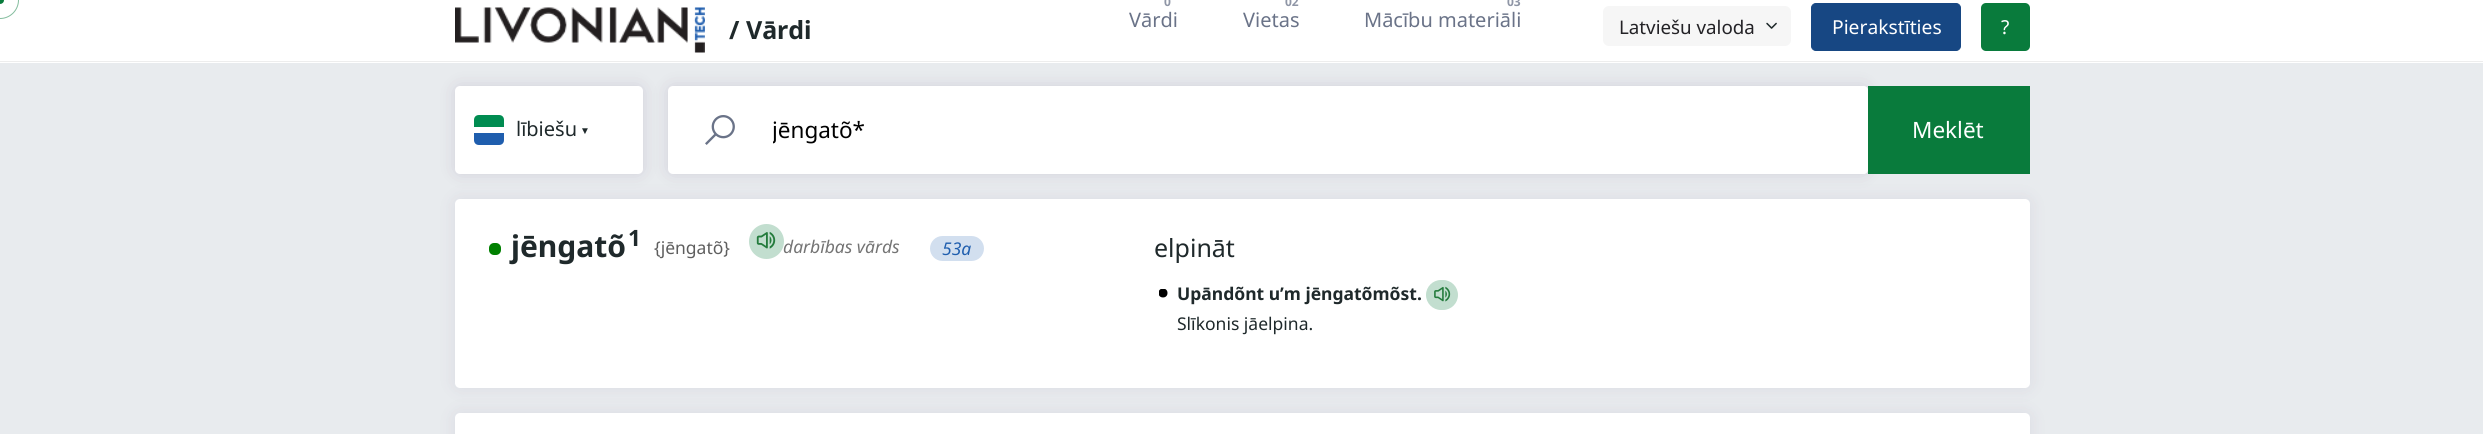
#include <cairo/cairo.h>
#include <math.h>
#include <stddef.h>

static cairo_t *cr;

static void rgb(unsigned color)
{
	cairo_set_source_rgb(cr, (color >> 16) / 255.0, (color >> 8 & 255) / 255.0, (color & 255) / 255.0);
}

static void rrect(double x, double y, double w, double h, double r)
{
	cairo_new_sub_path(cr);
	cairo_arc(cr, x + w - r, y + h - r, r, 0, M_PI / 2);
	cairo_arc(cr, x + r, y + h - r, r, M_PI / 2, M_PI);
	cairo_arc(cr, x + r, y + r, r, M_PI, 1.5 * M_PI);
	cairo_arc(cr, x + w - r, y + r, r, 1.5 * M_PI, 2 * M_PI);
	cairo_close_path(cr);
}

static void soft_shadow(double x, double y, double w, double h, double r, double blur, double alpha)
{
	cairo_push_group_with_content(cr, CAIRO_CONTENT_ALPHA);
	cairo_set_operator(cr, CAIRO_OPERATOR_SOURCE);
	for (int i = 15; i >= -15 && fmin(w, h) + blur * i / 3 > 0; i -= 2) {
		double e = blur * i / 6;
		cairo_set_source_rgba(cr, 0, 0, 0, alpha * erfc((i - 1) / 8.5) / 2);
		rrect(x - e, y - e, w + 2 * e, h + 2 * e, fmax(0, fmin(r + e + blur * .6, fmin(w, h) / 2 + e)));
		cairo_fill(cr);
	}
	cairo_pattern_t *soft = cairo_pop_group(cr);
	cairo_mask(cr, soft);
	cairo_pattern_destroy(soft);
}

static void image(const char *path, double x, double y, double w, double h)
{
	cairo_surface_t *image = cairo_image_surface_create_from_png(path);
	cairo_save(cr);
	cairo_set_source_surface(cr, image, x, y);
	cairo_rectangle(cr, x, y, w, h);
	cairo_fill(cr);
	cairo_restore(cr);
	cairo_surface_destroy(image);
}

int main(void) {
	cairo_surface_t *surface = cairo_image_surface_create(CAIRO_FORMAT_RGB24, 2483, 434);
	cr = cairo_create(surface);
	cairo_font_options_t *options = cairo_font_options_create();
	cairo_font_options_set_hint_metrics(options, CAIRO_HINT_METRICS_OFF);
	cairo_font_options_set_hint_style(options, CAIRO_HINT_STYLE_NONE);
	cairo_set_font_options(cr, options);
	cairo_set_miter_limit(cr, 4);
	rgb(0xe8ebee);
	cairo_paint(cr);
	rgb(0x523f69);
	soft_shadow(455, 86, 188, 88, 5, 8, 0.15);
	soft_shadow(668, 86, 1200, 88, 5, 8, 0.15);
	rgb(0xffffff);
	cairo_rectangle(cr, 0, 0, 2483, 63);
	cairo_fill(cr);
	cairo_arc(cr, 0, 0, 18.5, 0, 2 * M_PI);
	rgb(0x84bd9e);
	cairo_set_line_width(cr, 1);
	cairo_stroke(cr);
	rgb(0x097b3c);
	cairo_arc(cr, 0, 0, 4, 0, 2 * M_PI);
	cairo_fill(cr);
	rgb(0xededed);
	cairo_rectangle(cr, 0, 61, 2483, 1);
	cairo_fill(cr);
	image("img/1.png", 455, 7, 250, 46);
	rgb(0xf6f6f6);
	rrect(1603, 6, 188, 40, 6);
	cairo_fill(cr);
	image("img/2.png", 1766, 22, 11, 7);
	rgb(0x174783);
	rrect(1811.5, 3.5, 149, 47, 4.5);
	cairo_fill_preserve(cr);
	cairo_stroke(cr);
	rgb(0x097b3c);
	rrect(1981, 3, 49, 48, 5);
	cairo_fill(cr);
	rgb(0xffffff);
	rrect(455, 86, 188, 88, 5);
	cairo_fill(cr);
	rgb(0x008c51);
	cairo_new_path(cr);
	cairo_move_to(cr, 479, 115);
	cairo_line_to(cr, 499, 115);
	cairo_curve_to(cr, 502, 115, 504, 117, 504, 120);
	cairo_line_to(cr, 504, 127);
	cairo_line_to(cr, 474, 127);
	cairo_line_to(cr, 474, 120);
	cairo_curve_to(cr, 474, 117, 476, 115, 479, 115);
	cairo_close_path(cr);
	cairo_fill(cr);
	rgb(0x1f5eae);
	cairo_new_path(cr);
	cairo_move_to(cr, 474, 133);
	cairo_line_to(cr, 504, 133);
	cairo_line_to(cr, 504, 140);
	cairo_curve_to(cr, 504, 143, 502, 145, 499, 145);
	cairo_line_to(cr, 479, 145);
	cairo_curve_to(cr, 476, 145, 474, 143, 474, 140);
	cairo_close_path(cr);
	cairo_fill(cr);
	rgb(0xffffff);
	rrect(668, 86, 1200, 88, 5);
	cairo_fill(cr);
	image("img/3.png", 705, 115, 30, 30);
	cairo_new_path(cr);
	cairo_move_to(cr, 754, 86);
	cairo_line_to(cr, 1863, 86);
	cairo_curve_to(cr, 1866, 86, 1868, 88, 1868, 91);
	cairo_line_to(cr, 1868, 169);
	cairo_curve_to(cr, 1868, 172, 1866, 174, 1863, 174);
	cairo_line_to(cr, 754, 174);
	cairo_close_path(cr);
	cairo_fill(cr);
	rgb(0x097b3c);
	cairo_rectangle(cr, 1868, 86, 162, 88);
	cairo_fill(cr);
	rgb(0x523f69);
	soft_shadow(455, 199, 1575, 189, 5, 8, 0.1);
	rgb(0xffffff);
	rrect(455, 199, 1575, 189, 5);
	cairo_fill(cr);
	rgb(0x008000);
	rrect(489, 243, 12, 12, 5);
	cairo_fill(cr);
	rgb(0xc2decf);
	cairo_arc(cr, 766.5, 241.5, 17.5, 0, 2 * M_PI);
	cairo_fill(cr);
	image("img/4.png", 756, 231, 20, 18);
	rgb(0xd2dfef);
	rrect(930, 236, 54, 25, 12.5);
	cairo_fill(cr);
	cairo_save(cr);
	cairo_rectangle(cr, 1159, 289, 9, 9);
	cairo_clip(cr);
	rgb(0x000000);
	cairo_arc(cr, 1163, 293, 4.5, 0, 2 * M_PI);
	cairo_fill(cr);
	cairo_restore(cr);
	rgb(0xc2decf);
	rrect(1426, 280, 32, 30, 15);
	cairo_fill(cr);
	image("img/5.png", 1434, 286, 17, 16);
	rgb(0x523f69);
	soft_shadow(455, 413, 1575, 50, 5, 8, 0.1);
	rgb(0xffffff);
	rrect(455, 413, 1575, 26, 5);
	cairo_fill(cr);
	cairo_select_font_face(cr, "Noto Sans", CAIRO_FONT_SLANT_NORMAL, CAIRO_FONT_WEIGHT_BOLD);
	cairo_set_font_size(cr, 25);
	rgb(0x1f292b);
	cairo_move_to(cr, 729, 39);
	cairo_show_text(cr, "/ Vārdi");
	cairo_set_font_size(cr, 12);
	rgb(0x8f96a6);
	cairo_move_to(cr, 1164, 6);
	cairo_show_text(cr, "0");
	cairo_select_font_face(cr, "Noto Sans", CAIRO_FONT_SLANT_NORMAL, CAIRO_FONT_WEIGHT_NORMAL);
	cairo_set_font_size(cr, 20);
	rgb(0x6a7388);
	cairo_move_to(cr, 1129, 27);
	cairo_show_text(cr, "Vārdi");
	cairo_select_font_face(cr, "Noto Sans", CAIRO_FONT_SLANT_NORMAL, CAIRO_FONT_WEIGHT_BOLD);
	cairo_set_font_size(cr, 12);
	rgb(0x8f96a6);
	cairo_move_to(cr, 1285, 6);
	cairo_show_text(cr, "02");
	cairo_select_font_face(cr, "Noto Sans", CAIRO_FONT_SLANT_NORMAL, CAIRO_FONT_WEIGHT_NORMAL);
	cairo_set_font_size(cr, 20);
	rgb(0x6a7388);
	cairo_move_to(cr, 1243, 27);
	cairo_show_text(cr, "Vietas");
	cairo_select_font_face(cr, "Noto Sans", CAIRO_FONT_SLANT_NORMAL, CAIRO_FONT_WEIGHT_BOLD);
	cairo_set_font_size(cr, 12);
	rgb(0x8f96a6);
	cairo_move_to(cr, 1507, 6);
	cairo_show_text(cr, "03");
	cairo_select_font_face(cr, "Noto Sans", CAIRO_FONT_SLANT_NORMAL, CAIRO_FONT_WEIGHT_NORMAL);
	cairo_set_font_size(cr, 20);
	rgb(0x6a7388);
	cairo_move_to(cr, 1364, 27);
	cairo_show_text(cr, "Mācību materiāli");
	cairo_set_font_size(cr, 18.75);
	rgb(0x232226);
	cairo_move_to(cr, 1619, 34);
	cairo_show_text(cr, "Latviešu valoda");
	cairo_set_font_size(cr, 19.25);
	rgb(0xffffff);
	cairo_move_to(cr, 1832, 34);
	cairo_show_text(cr, "Pierakstīties");
	cairo_move_to(cr, 2001, 34);
	cairo_show_text(cr, "?");
	cairo_set_font_size(cr, 20);
	rgb(0x1f292b);
	cairo_move_to(cr, 516, 136);
	cairo_show_text(cr, "lībiešu");
	cairo_select_font_face(cr, "Liberation Sans", CAIRO_FONT_SLANT_NORMAL, CAIRO_FONT_WEIGHT_NORMAL);
	cairo_set_font_size(cr, 10);
	cairo_move_to(cr, 580, 134);
	cairo_show_text(cr, "▼");
	cairo_save(cr);
	cairo_rectangle(cr, 773, 113, 1071, 33);
	cairo_clip(cr);
	cairo_select_font_face(cr, "Noto Sans", CAIRO_FONT_SLANT_NORMAL, CAIRO_FONT_WEIGHT_NORMAL);
	cairo_set_font_size(cr, 22.5);
	rgb(0x000000);
	cairo_move_to(cr, 772, 138);
	cairo_show_text(cr, "jēngatõ*");
	cairo_restore(cr);
	cairo_select_font_face(cr, "Noto Sans", CAIRO_FONT_SLANT_NORMAL, CAIRO_FONT_WEIGHT_NORMAL);
	cairo_set_font_size(cr, 22.5);
	rgb(0xffffff);
	cairo_move_to(cr, 1912, 138);
	cairo_show_text(cr, "Meklēt");
	cairo_select_font_face(cr, "Noto Sans", CAIRO_FONT_SLANT_NORMAL, CAIRO_FONT_WEIGHT_BOLD);
	cairo_set_font_size(cr, 30);
	rgb(0x1f292b);
	cairo_move_to(cr, 511, 257);
	cairo_show_text(cr, "jēngatõ");
	cairo_set_font_size(cr, 22.5);
	cairo_move_to(cr, 628, 246);
	cairo_show_text(cr, "1");
	cairo_select_font_face(cr, "Noto Sans", CAIRO_FONT_SLANT_NORMAL, CAIRO_FONT_WEIGHT_NORMAL);
	cairo_set_font_size(cr, 17.5);
	rgb(0x5e5e5e);
	cairo_move_to(cr, 654, 254);
	cairo_show_text(cr, "{jēngatõ}");
	cairo_select_font_face(cr, "Noto Sans", CAIRO_FONT_SLANT_ITALIC, CAIRO_FONT_WEIGHT_NORMAL);
	rgb(0x747474);
	cairo_move_to(cr, 783, 253);
	cairo_show_text(cr, "darbības vārds");
	rgb(0x1f5eae);
	cairo_move_to(cr, 942, 255);
	cairo_show_text(cr, "53a");
	cairo_select_font_face(cr, "Noto Sans", CAIRO_FONT_SLANT_NORMAL, CAIRO_FONT_WEIGHT_NORMAL);
	cairo_set_font_size(cr, 25);
	rgb(0x1f292b);
	cairo_move_to(cr, 1154, 257);
	cairo_show_text(cr, "elpināt");
	cairo_select_font_face(cr, "Noto Sans", CAIRO_FONT_SLANT_NORMAL, CAIRO_FONT_WEIGHT_BOLD);
	cairo_set_font_size(cr, 17.5);
	cairo_move_to(cr, 1177, 300);
	cairo_show_text(cr, "Upāndõnt u’m jēngatõmõst.");
	cairo_select_font_face(cr, "Noto Sans", CAIRO_FONT_SLANT_NORMAL, CAIRO_FONT_WEIGHT_NORMAL);
	cairo_move_to(cr, 1177, 330);
	cairo_show_text(cr, "Slīkonis jāelpina.");
	cairo_surface_write_to_png(surface, "page.png");
	cairo_font_options_destroy(options);
	cairo_destroy(cr);
	cairo_surface_destroy(surface);
	return 0;
}
